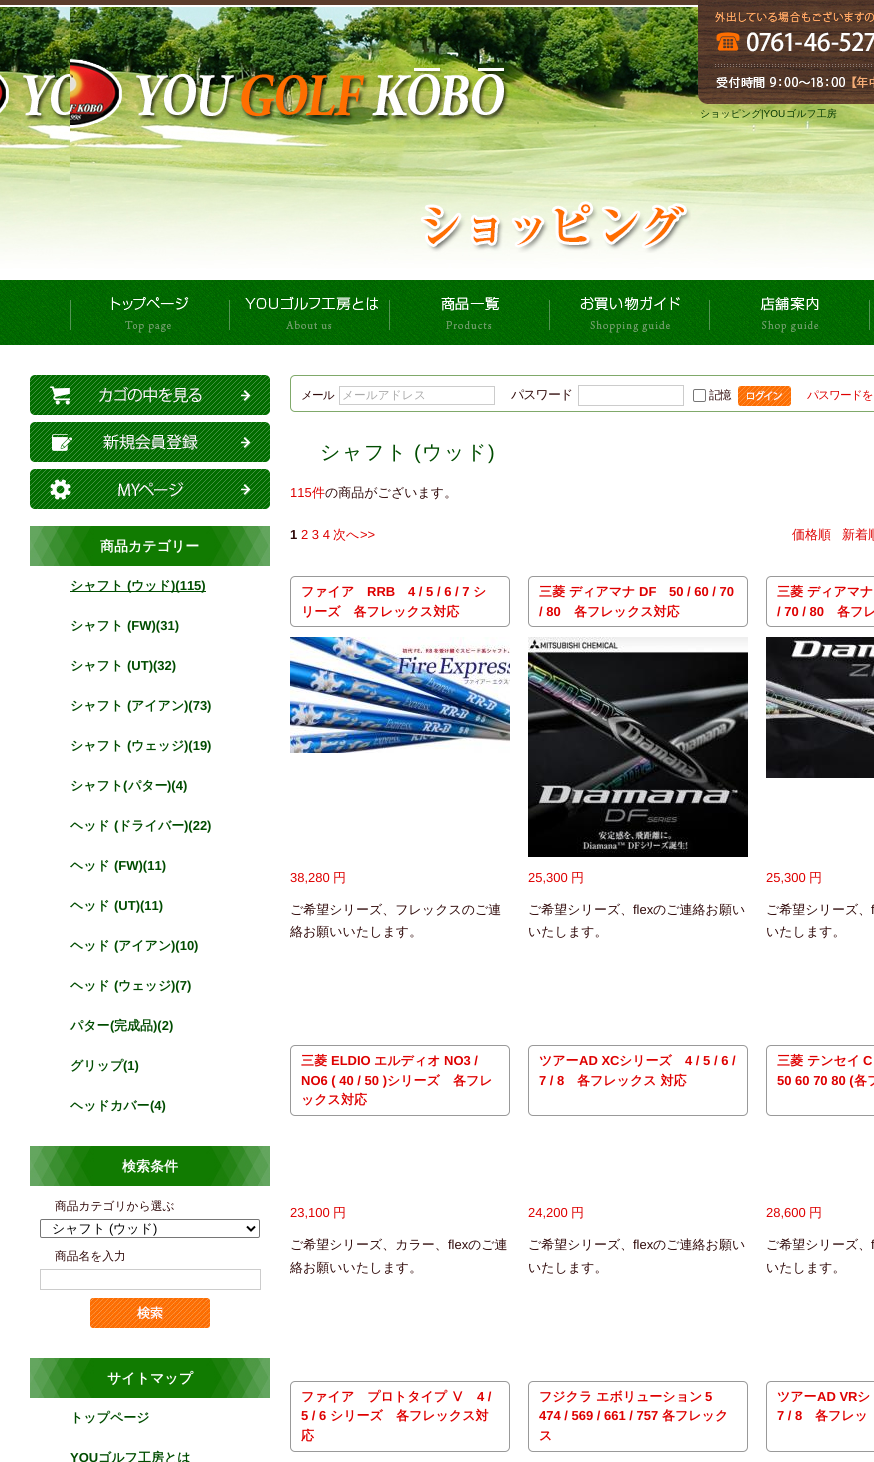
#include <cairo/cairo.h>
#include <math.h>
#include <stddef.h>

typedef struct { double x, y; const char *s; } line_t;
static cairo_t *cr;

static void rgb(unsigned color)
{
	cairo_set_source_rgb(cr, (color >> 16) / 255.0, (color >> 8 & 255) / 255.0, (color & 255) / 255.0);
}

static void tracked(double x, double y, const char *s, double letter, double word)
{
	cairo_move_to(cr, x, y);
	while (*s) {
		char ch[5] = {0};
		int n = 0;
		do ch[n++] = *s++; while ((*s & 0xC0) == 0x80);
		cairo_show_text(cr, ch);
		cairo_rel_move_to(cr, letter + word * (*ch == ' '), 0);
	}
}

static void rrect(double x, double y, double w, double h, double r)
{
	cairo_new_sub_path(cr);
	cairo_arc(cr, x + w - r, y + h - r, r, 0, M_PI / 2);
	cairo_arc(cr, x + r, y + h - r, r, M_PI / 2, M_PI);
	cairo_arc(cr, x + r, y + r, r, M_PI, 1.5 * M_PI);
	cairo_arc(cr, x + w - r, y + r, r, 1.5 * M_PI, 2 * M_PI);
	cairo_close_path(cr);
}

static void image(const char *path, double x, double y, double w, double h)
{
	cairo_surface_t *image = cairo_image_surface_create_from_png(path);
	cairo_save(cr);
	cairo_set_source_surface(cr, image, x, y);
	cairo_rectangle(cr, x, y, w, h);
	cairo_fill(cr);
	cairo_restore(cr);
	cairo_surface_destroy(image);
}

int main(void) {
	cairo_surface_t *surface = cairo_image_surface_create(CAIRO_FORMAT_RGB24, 874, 1462);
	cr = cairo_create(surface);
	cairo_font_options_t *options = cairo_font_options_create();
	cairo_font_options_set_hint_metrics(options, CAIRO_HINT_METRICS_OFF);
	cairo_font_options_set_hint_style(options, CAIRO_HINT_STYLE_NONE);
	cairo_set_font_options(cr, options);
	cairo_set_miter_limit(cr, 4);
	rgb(0xffffff);
	cairo_paint(cr);
	image("img/1.png", 0, 0, 70, 345);
	image("img/2.png", 70, 0, 804, 345);
	image("img/3.png", 420, 201, 271, 52);
	image("img/4.png", 70, 297, 160, 36);
	image("img/5.png", 245, 296, 145, 34);
	image("img/6.png", 441, 297, 109, 33);
	image("img/7.png", 580, 296, 130, 37);
	image("img/8.png", 760, 297, 110, 36);
	image("img/9.png", 30, 375, 240, 40);
	image("img/10.png", 30, 422, 240, 40);
	image("img/11.png", 30, 469, 240, 40);
	image("img/12.png", 30, 526, 240, 40);
	rgb(0x004c00);
	cairo_rectangle(cr, 70, 591, 136, 1);
	cairo_fill(cr);
	image("img/12.png", 30, 1146, 240, 40);
	rrect(40.5, 1219.5, 219, 18, 1.5);
	rgb(0x767676);
	cairo_set_line_width(cr, 1);
	cairo_stroke(cr);
	cairo_new_path(cr);
	cairo_move_to(cr, 247, 1226.5);
	cairo_line_to(cr, 251, 1230.5);
	cairo_line_to(cr, 255, 1226.5);
	rgb(0x000000);
	cairo_set_line_width(cr, 2);
	cairo_stroke(cr);
	cairo_rectangle(cr, 40.5, 1269.5, 220, 20);
	rgb(0xcccccc);
	cairo_set_line_width(cr, 1);
	cairo_stroke(cr);
	image("img/13.png", 90, 1298, 120, 30);
	image("img/12.png", 30, 1358, 240, 40);
	rrect(290.5, 375.5, 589, 36, 4.5);
	rgb(0x80a96a);
	cairo_stroke(cr);
	cairo_rectangle(cr, 339.5, 386.5, 155, 18);
	rgb(0xcccccc);
	cairo_stroke(cr);
	cairo_rectangle(cr, 578.5, 385.5, 105, 20);
	cairo_stroke(cr);
	rrect(693.5, 389.5, 12, 12, 1.5);
	rgb(0x767676);
	cairo_stroke(cr);
	image("img/14.png", 738, 386, 53, 20);
	rrect(290.5, 576.5, 219, 50, 4.5);
	rgb(0x999999);
	cairo_stroke(cr);
	image("img/15.png", 290, 637, 220, 116);
	rrect(528.5, 576.5, 219, 50, 4.5);
	cairo_stroke(cr);
	image("img/16.png", 528, 637, 220, 220);
	rrect(766.5, 576.5, 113, 50, 4.5);
	cairo_stroke(cr);
	image("img/17.png", 766, 637, 108, 141);
	rrect(290.5, 1045.5, 219, 70, 4.5);
	cairo_stroke(cr);
	rrect(528.5, 1045.5, 219, 70, 4.5);
	cairo_stroke(cr);
	rrect(766.5, 1045.5, 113, 70, 4.5);
	cairo_stroke(cr);
	rrect(290.5, 1381.5, 219, 70, 4.5);
	cairo_stroke(cr);
	rrect(528.5, 1381.5, 219, 70, 4.5);
	cairo_stroke(cr);
	rrect(766.5, 1381.5, 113, 70, 4.5);
	cairo_stroke(cr);
	cairo_select_font_face(cr, "WenQuanYi Zen Hei Medium", CAIRO_FONT_SLANT_NORMAL, CAIRO_FONT_WEIGHT_NORMAL);
	cairo_set_font_size(cr, 10);
	rgb(0x023701);
	cairo_move_to(cr, 700, 117);
	cairo_show_text(cr, "ショッピング");
	cairo_select_font_face(cr, "Liberation Sans", CAIRO_FONT_SLANT_NORMAL, CAIRO_FONT_WEIGHT_NORMAL);
	cairo_move_to(cr, 761, 117);
	cairo_show_text(cr, "|YOU");
	cairo_select_font_face(cr, "WenQuanYi Zen Hei Medium", CAIRO_FONT_SLANT_NORMAL, CAIRO_FONT_WEIGHT_NORMAL);
	cairo_move_to(cr, 786, 117);
	cairo_show_text(cr, "ゴルフ工房");
	cairo_select_font_face(cr, "WenQuanYi Zen Hei", CAIRO_FONT_SLANT_NORMAL, CAIRO_FONT_WEIGHT_BOLD);
	cairo_set_font_size(cr, 14);
	rgb(0xffffff);
	cairo_move_to(cr, 100, 551);
	cairo_show_text(cr, "商品カテゴリー");
	cairo_set_font_size(cr, 13);
	rgb(0x004c00);
	cairo_move_to(cr, 70, 590);
	cairo_show_text(cr, "シャフト");
	cairo_select_font_face(cr, "Liberation Sans", CAIRO_FONT_SLANT_NORMAL, CAIRO_FONT_WEIGHT_BOLD);
	cairo_move_to(cr, 127, 590);
	cairo_show_text(cr, "(");
	cairo_select_font_face(cr, "WenQuanYi Zen Hei", CAIRO_FONT_SLANT_NORMAL, CAIRO_FONT_WEIGHT_BOLD);
	cairo_move_to(cr, 131, 590);
	cairo_show_text(cr, "ウッド");
	cairo_select_font_face(cr, "Liberation Sans", CAIRO_FONT_SLANT_NORMAL, CAIRO_FONT_WEIGHT_BOLD);
	cairo_move_to(cr, 171, 590);
	cairo_show_text(cr, ")(115)");
	cairo_select_font_face(cr, "WenQuanYi Zen Hei", CAIRO_FONT_SLANT_NORMAL, CAIRO_FONT_WEIGHT_BOLD);
	cairo_move_to(cr, 70, 630);
	cairo_show_text(cr, "シャフト");
	cairo_select_font_face(cr, "Liberation Sans", CAIRO_FONT_SLANT_NORMAL, CAIRO_FONT_WEIGHT_BOLD);
	cairo_move_to(cr, 127, 630);
	cairo_show_text(cr, "(FW)(31)");
	cairo_select_font_face(cr, "WenQuanYi Zen Hei", CAIRO_FONT_SLANT_NORMAL, CAIRO_FONT_WEIGHT_BOLD);
	cairo_move_to(cr, 70, 670);
	cairo_show_text(cr, "シャフト");
	cairo_select_font_face(cr, "Liberation Sans", CAIRO_FONT_SLANT_NORMAL, CAIRO_FONT_WEIGHT_BOLD);
	cairo_move_to(cr, 127, 670);
	cairo_show_text(cr, "(UT)(32)");
	cairo_select_font_face(cr, "WenQuanYi Zen Hei", CAIRO_FONT_SLANT_NORMAL, CAIRO_FONT_WEIGHT_BOLD);
	cairo_move_to(cr, 70, 710);
	cairo_show_text(cr, "シャフト");
	cairo_select_font_face(cr, "Liberation Sans", CAIRO_FONT_SLANT_NORMAL, CAIRO_FONT_WEIGHT_BOLD);
	cairo_move_to(cr, 127, 710);
	cairo_show_text(cr, "(");
	cairo_select_font_face(cr, "WenQuanYi Zen Hei", CAIRO_FONT_SLANT_NORMAL, CAIRO_FONT_WEIGHT_BOLD);
	cairo_move_to(cr, 131, 710);
	cairo_show_text(cr, "アイアン");
	cairo_select_font_face(cr, "Liberation Sans", CAIRO_FONT_SLANT_NORMAL, CAIRO_FONT_WEIGHT_BOLD);
	cairo_move_to(cr, 184, 710);
	cairo_show_text(cr, ")(73)");
	cairo_select_font_face(cr, "WenQuanYi Zen Hei", CAIRO_FONT_SLANT_NORMAL, CAIRO_FONT_WEIGHT_BOLD);
	cairo_move_to(cr, 70, 750);
	cairo_show_text(cr, "シャフト");
	cairo_select_font_face(cr, "Liberation Sans", CAIRO_FONT_SLANT_NORMAL, CAIRO_FONT_WEIGHT_BOLD);
	cairo_move_to(cr, 127, 750);
	cairo_show_text(cr, "(");
	cairo_select_font_face(cr, "WenQuanYi Zen Hei", CAIRO_FONT_SLANT_NORMAL, CAIRO_FONT_WEIGHT_BOLD);
	cairo_move_to(cr, 131, 750);
	cairo_show_text(cr, "ウェッジ");
	cairo_select_font_face(cr, "Liberation Sans", CAIRO_FONT_SLANT_NORMAL, CAIRO_FONT_WEIGHT_BOLD);
	cairo_move_to(cr, 184, 750);
	cairo_show_text(cr, ")(19)");
	cairo_select_font_face(cr, "WenQuanYi Zen Hei", CAIRO_FONT_SLANT_NORMAL, CAIRO_FONT_WEIGHT_BOLD);
	cairo_move_to(cr, 70, 790);
	cairo_show_text(cr, "シャフト");
	cairo_select_font_face(cr, "Liberation Sans", CAIRO_FONT_SLANT_NORMAL, CAIRO_FONT_WEIGHT_BOLD);
	cairo_move_to(cr, 123, 790);
	cairo_show_text(cr, "(");
	cairo_select_font_face(cr, "WenQuanYi Zen Hei", CAIRO_FONT_SLANT_NORMAL, CAIRO_FONT_WEIGHT_BOLD);
	cairo_move_to(cr, 128, 790);
	cairo_show_text(cr, "パター");
	cairo_select_font_face(cr, "Liberation Sans", CAIRO_FONT_SLANT_NORMAL, CAIRO_FONT_WEIGHT_BOLD);
	cairo_move_to(cr, 167, 790);
	cairo_show_text(cr, ")(4)");
	cairo_select_font_face(cr, "WenQuanYi Zen Hei", CAIRO_FONT_SLANT_NORMAL, CAIRO_FONT_WEIGHT_BOLD);
	cairo_move_to(cr, 70, 830);
	cairo_show_text(cr, "ヘッド");
	cairo_select_font_face(cr, "Liberation Sans", CAIRO_FONT_SLANT_NORMAL, CAIRO_FONT_WEIGHT_BOLD);
	cairo_move_to(cr, 114, 830);
	cairo_show_text(cr, "(");
	cairo_select_font_face(cr, "WenQuanYi Zen Hei", CAIRO_FONT_SLANT_NORMAL, CAIRO_FONT_WEIGHT_BOLD);
	cairo_move_to(cr, 118, 830);
	cairo_show_text(cr, "ドライバー");
	cairo_select_font_face(cr, "Liberation Sans", CAIRO_FONT_SLANT_NORMAL, CAIRO_FONT_WEIGHT_BOLD);
	cairo_move_to(cr, 184, 830);
	cairo_show_text(cr, ")(22)");
	cairo_select_font_face(cr, "WenQuanYi Zen Hei", CAIRO_FONT_SLANT_NORMAL, CAIRO_FONT_WEIGHT_BOLD);
	cairo_move_to(cr, 70, 870);
	cairo_show_text(cr, "ヘッド");
	cairo_select_font_face(cr, "Liberation Sans", CAIRO_FONT_SLANT_NORMAL, CAIRO_FONT_WEIGHT_BOLD);
	cairo_move_to(cr, 114, 870);
	cairo_show_text(cr, "(FW)(11)");
	cairo_select_font_face(cr, "WenQuanYi Zen Hei", CAIRO_FONT_SLANT_NORMAL, CAIRO_FONT_WEIGHT_BOLD);
	cairo_move_to(cr, 70, 910);
	cairo_show_text(cr, "ヘッド");
	cairo_select_font_face(cr, "Liberation Sans", CAIRO_FONT_SLANT_NORMAL, CAIRO_FONT_WEIGHT_BOLD);
	cairo_move_to(cr, 114, 910);
	cairo_show_text(cr, "(UT)(11)");
	cairo_select_font_face(cr, "WenQuanYi Zen Hei", CAIRO_FONT_SLANT_NORMAL, CAIRO_FONT_WEIGHT_BOLD);
	cairo_move_to(cr, 70, 950);
	cairo_show_text(cr, "ヘッド");
	cairo_select_font_face(cr, "Liberation Sans", CAIRO_FONT_SLANT_NORMAL, CAIRO_FONT_WEIGHT_BOLD);
	cairo_move_to(cr, 114, 950);
	cairo_show_text(cr, "(");
	cairo_select_font_face(cr, "WenQuanYi Zen Hei", CAIRO_FONT_SLANT_NORMAL, CAIRO_FONT_WEIGHT_BOLD);
	cairo_move_to(cr, 118, 950);
	cairo_show_text(cr, "アイアン");
	cairo_select_font_face(cr, "Liberation Sans", CAIRO_FONT_SLANT_NORMAL, CAIRO_FONT_WEIGHT_BOLD);
	cairo_move_to(cr, 171, 950);
	cairo_show_text(cr, ")(10)");
	cairo_select_font_face(cr, "WenQuanYi Zen Hei", CAIRO_FONT_SLANT_NORMAL, CAIRO_FONT_WEIGHT_BOLD);
	cairo_move_to(cr, 70, 990);
	cairo_show_text(cr, "ヘッド");
	cairo_select_font_face(cr, "Liberation Sans", CAIRO_FONT_SLANT_NORMAL, CAIRO_FONT_WEIGHT_BOLD);
	cairo_move_to(cr, 114, 990);
	cairo_show_text(cr, "(");
	cairo_select_font_face(cr, "WenQuanYi Zen Hei", CAIRO_FONT_SLANT_NORMAL, CAIRO_FONT_WEIGHT_BOLD);
	cairo_move_to(cr, 118, 990);
	cairo_show_text(cr, "ウェッジ");
	cairo_select_font_face(cr, "Liberation Sans", CAIRO_FONT_SLANT_NORMAL, CAIRO_FONT_WEIGHT_BOLD);
	cairo_move_to(cr, 171, 990);
	cairo_show_text(cr, ")(7)");
	cairo_select_font_face(cr, "WenQuanYi Zen Hei", CAIRO_FONT_SLANT_NORMAL, CAIRO_FONT_WEIGHT_BOLD);
	cairo_move_to(cr, 70, 1030);
	cairo_show_text(cr, "パター");
	cairo_select_font_face(cr, "Liberation Sans", CAIRO_FONT_SLANT_NORMAL, CAIRO_FONT_WEIGHT_BOLD);
	cairo_move_to(cr, 110, 1030);
	cairo_show_text(cr, "(");
	cairo_select_font_face(cr, "WenQuanYi Zen Hei", CAIRO_FONT_SLANT_NORMAL, CAIRO_FONT_WEIGHT_BOLD);
	cairo_move_to(cr, 114, 1030);
	cairo_show_text(cr, "完成品");
	cairo_select_font_face(cr, "Liberation Sans", CAIRO_FONT_SLANT_NORMAL, CAIRO_FONT_WEIGHT_BOLD);
	cairo_move_to(cr, 153, 1030);
	cairo_show_text(cr, ")(2)");
	cairo_select_font_face(cr, "WenQuanYi Zen Hei", CAIRO_FONT_SLANT_NORMAL, CAIRO_FONT_WEIGHT_BOLD);
	cairo_move_to(cr, 70, 1070);
	cairo_show_text(cr, "グリップ");
	cairo_select_font_face(cr, "Liberation Sans", CAIRO_FONT_SLANT_NORMAL, CAIRO_FONT_WEIGHT_BOLD);
	cairo_move_to(cr, 123, 1070);
	cairo_show_text(cr, "(1)");
	cairo_select_font_face(cr, "WenQuanYi Zen Hei", CAIRO_FONT_SLANT_NORMAL, CAIRO_FONT_WEIGHT_BOLD);
	cairo_move_to(cr, 70, 1110);
	cairo_show_text(cr, "ヘッドカバー");
	cairo_select_font_face(cr, "Liberation Sans", CAIRO_FONT_SLANT_NORMAL, CAIRO_FONT_WEIGHT_BOLD);
	cairo_move_to(cr, 150, 1110);
	cairo_show_text(cr, "(4)");
	cairo_select_font_face(cr, "WenQuanYi Zen Hei", CAIRO_FONT_SLANT_NORMAL, CAIRO_FONT_WEIGHT_BOLD);
	cairo_set_font_size(cr, 14);
	rgb(0xffffff);
	cairo_move_to(cr, 122, 1171);
	cairo_show_text(cr, "検索条件");
	cairo_select_font_face(cr, "WenQuanYi Zen Hei Medium", CAIRO_FONT_SLANT_NORMAL, CAIRO_FONT_WEIGHT_NORMAL);
	cairo_set_font_size(cr, 11.75);
	rgb(0x2f0909);
	cairo_move_to(cr, 55, 1210);
	cairo_show_text(cr, "商品カテゴリから選ぶ");
	cairo_set_font_size(cr, 13);
	rgb(0x000000);
	cairo_move_to(cr, 52, 1233);
	cairo_show_text(cr, "シャフト");
	cairo_select_font_face(cr, "Liberation Sans", CAIRO_FONT_SLANT_NORMAL, CAIRO_FONT_WEIGHT_NORMAL);
	cairo_move_to(cr, 109, 1233);
	cairo_show_text(cr, "(");
	cairo_select_font_face(cr, "WenQuanYi Zen Hei Medium", CAIRO_FONT_SLANT_NORMAL, CAIRO_FONT_WEIGHT_NORMAL);
	cairo_move_to(cr, 113, 1233);
	cairo_show_text(cr, "ウッド");
	cairo_select_font_face(cr, "Liberation Sans", CAIRO_FONT_SLANT_NORMAL, CAIRO_FONT_WEIGHT_NORMAL);
	cairo_move_to(cr, 153, 1233);
	cairo_show_text(cr, ")");
	cairo_select_font_face(cr, "WenQuanYi Zen Hei Medium", CAIRO_FONT_SLANT_NORMAL, CAIRO_FONT_WEIGHT_NORMAL);
	cairo_set_font_size(cr, 11.75);
	rgb(0x2f0909);
	cairo_move_to(cr, 55, 1260);
	cairo_show_text(cr, "商品名を入力");
	cairo_select_font_face(cr, "WenQuanYi Zen Hei", CAIRO_FONT_SLANT_NORMAL, CAIRO_FONT_WEIGHT_BOLD);
	cairo_set_font_size(cr, 14);
	rgb(0xffffff);
	cairo_move_to(cr, 107, 1383);
	cairo_show_text(cr, "サイトマップ");
	cairo_set_font_size(cr, 13);
	rgb(0x004c00);
	cairo_move_to(cr, 70, 1422);
	cairo_show_text(cr, "トップページ");
	cairo_select_font_face(cr, "Liberation Sans", CAIRO_FONT_SLANT_NORMAL, CAIRO_FONT_WEIGHT_BOLD);
	cairo_move_to(cr, 70, 1462);
	cairo_show_text(cr, "YOU");
	cairo_select_font_face(cr, "WenQuanYi Zen Hei", CAIRO_FONT_SLANT_NORMAL, CAIRO_FONT_WEIGHT_BOLD);
	cairo_move_to(cr, 98, 1462);
	cairo_show_text(cr, "ゴルフ工房とは");
	cairo_select_font_face(cr, "WenQuanYi Zen Hei Medium", CAIRO_FONT_SLANT_NORMAL, CAIRO_FONT_WEIGHT_NORMAL);
	cairo_set_font_size(cr, 11.75);
	rgb(0x2f0909);
	tracked(301, 399, "メール", -1, 0);
	rgb(0xaaaaaa);
	cairo_move_to(cr, 342, 399);
	cairo_show_text(cr, "メールアドレス");
	cairo_set_font_size(cr, 13);
	rgb(0x2f0909);
	tracked(511, 399, "パスワード", -1, 0);
	cairo_set_font_size(cr, 11.75);
	tracked(709, 399, "記憶", -1, 0);
	rgb(0xde0000);
	tracked(807, 399, "パスワードを", -1, 0);
	cairo_set_font_size(cr, 20);
	rgb(0x004c00);
	tracked(320, 459, "シャフト", 1.5, 0);
	cairo_select_font_face(cr, "Liberation Sans", CAIRO_FONT_SLANT_NORMAL, CAIRO_FONT_WEIGHT_NORMAL);
	tracked(414, 459, "(", 1.5, 0);
	cairo_select_font_face(cr, "WenQuanYi Zen Hei Medium", CAIRO_FONT_SLANT_NORMAL, CAIRO_FONT_WEIGHT_NORMAL);
	tracked(422, 459, "ウッド", 1.5, 0);
	cairo_select_font_face(cr, "Liberation Sans", CAIRO_FONT_SLANT_NORMAL, CAIRO_FONT_WEIGHT_NORMAL);
	tracked(488, 459, ")", 1.5, 0);
	cairo_set_font_size(cr, 13);
	rgb(0xde0000);
	cairo_move_to(cr, 290, 497);
	cairo_show_text(cr, "115");
	cairo_select_font_face(cr, "WenQuanYi Zen Hei Medium", CAIRO_FONT_SLANT_NORMAL, CAIRO_FONT_WEIGHT_NORMAL);
	cairo_move_to(cr, 312, 497);
	cairo_show_text(cr, "件");
	rgb(0x2f0909);
	cairo_move_to(cr, 325, 497);
	cairo_show_text(cr, "の商品がございます。");
	cairo_select_font_face(cr, "Liberation Sans", CAIRO_FONT_SLANT_NORMAL, CAIRO_FONT_WEIGHT_BOLD);
	cairo_move_to(cr, 290, 539);
	cairo_show_text(cr, "1");
	cairo_select_font_face(cr, "Liberation Sans", CAIRO_FONT_SLANT_NORMAL, CAIRO_FONT_WEIGHT_NORMAL);
	rgb(0xde0000);
	cairo_move_to(cr, 301, 539);
	cairo_show_text(cr, "2 3 4");
	cairo_select_font_face(cr, "WenQuanYi Zen Hei Medium", CAIRO_FONT_SLANT_NORMAL, CAIRO_FONT_WEIGHT_NORMAL);
	cairo_move_to(cr, 333, 539);
	cairo_show_text(cr, "次へ");
	cairo_select_font_face(cr, "Liberation Sans", CAIRO_FONT_SLANT_NORMAL, CAIRO_FONT_WEIGHT_NORMAL);
	cairo_move_to(cr, 360, 539);
	cairo_show_text(cr, ">>");
	cairo_select_font_face(cr, "WenQuanYi Zen Hei Medium", CAIRO_FONT_SLANT_NORMAL, CAIRO_FONT_WEIGHT_NORMAL);
	cairo_move_to(cr, 792, 539);
	cairo_show_text(cr, "価格順");
	cairo_move_to(cr, 842, 539);
	cairo_show_text(cr, "新着順");
	cairo_select_font_face(cr, "WenQuanYi Zen Hei", CAIRO_FONT_SLANT_NORMAL, CAIRO_FONT_WEIGHT_BOLD);
	cairo_move_to(cr, 301, 596);
	cairo_show_text(cr, "ファイア");
	cairo_select_font_face(cr, "Liberation Sans", CAIRO_FONT_SLANT_NORMAL, CAIRO_FONT_WEIGHT_BOLD);
	cairo_move_to(cr, 367, 596);
	cairo_show_text(cr, "RRB");
	cairo_move_to(cr, 408, 596);
	cairo_show_text(cr, "4 / 5 / 6 / 7");
	cairo_select_font_face(cr, "WenQuanYi Zen Hei", CAIRO_FONT_SLANT_NORMAL, CAIRO_FONT_WEIGHT_BOLD);
	cairo_move_to(cr, 473, 596);
	cairo_show_text(cr, "シ");
	cairo_move_to(cr, 301, 616);
	cairo_show_text(cr, "リーズ　各フレックス対応");
	cairo_select_font_face(cr, "Liberation Sans", CAIRO_FONT_SLANT_NORMAL, CAIRO_FONT_WEIGHT_NORMAL);
	cairo_move_to(cr, 290, 882);
	cairo_show_text(cr, "38,280");
	cairo_select_font_face(cr, "WenQuanYi Zen Hei Medium", CAIRO_FONT_SLANT_NORMAL, CAIRO_FONT_WEIGHT_NORMAL);
	cairo_move_to(cr, 333, 882);
	cairo_show_text(cr, "円");
	rgb(0x2f0909);
	cairo_move_to(cr, 290, 914);
	cairo_show_text(cr, "ご希望シリーズ、フレックスのご連");
	cairo_move_to(cr, 290, 936);
	cairo_show_text(cr, "絡お願いいたします。");
	cairo_select_font_face(cr, "WenQuanYi Zen Hei", CAIRO_FONT_SLANT_NORMAL, CAIRO_FONT_WEIGHT_BOLD);
	rgb(0xde0000);
	cairo_move_to(cr, 539, 596);
	cairo_show_text(cr, "三菱 ディアマナ");
	cairo_select_font_face(cr, "Liberation Sans", CAIRO_FONT_SLANT_NORMAL, CAIRO_FONT_WEIGHT_BOLD);
	{
		static const line_t items[] = {
			{639, 596, "DF"},
			{669, 596, "50 / 60 / 70"},
			{539, 616, "/ 80"},
		};
		for (size_t i = 0; i < sizeof items / sizeof *items; i++) {
			cairo_move_to(cr, items[i].x, items[i].y);
			cairo_show_text(cr, items[i].s);
		}
	}
	cairo_select_font_face(cr, "WenQuanYi Zen Hei", CAIRO_FONT_SLANT_NORMAL, CAIRO_FONT_WEIGHT_BOLD);
	cairo_move_to(cr, 574, 616);
	cairo_show_text(cr, "各フレックス対応");
	cairo_select_font_face(cr, "Liberation Sans", CAIRO_FONT_SLANT_NORMAL, CAIRO_FONT_WEIGHT_NORMAL);
	cairo_move_to(cr, 528, 882);
	cairo_show_text(cr, "25,300");
	cairo_select_font_face(cr, "WenQuanYi Zen Hei Medium", CAIRO_FONT_SLANT_NORMAL, CAIRO_FONT_WEIGHT_NORMAL);
	cairo_move_to(cr, 571, 882);
	cairo_show_text(cr, "円");
	rgb(0x2f0909);
	cairo_move_to(cr, 528, 914);
	cairo_show_text(cr, "ご希望シリーズ、");
	cairo_select_font_face(cr, "Liberation Sans", CAIRO_FONT_SLANT_NORMAL, CAIRO_FONT_WEIGHT_NORMAL);
	cairo_move_to(cr, 633, 914);
	cairo_show_text(cr, "flex");
	cairo_select_font_face(cr, "WenQuanYi Zen Hei Medium", CAIRO_FONT_SLANT_NORMAL, CAIRO_FONT_WEIGHT_NORMAL);
	cairo_move_to(cr, 653, 914);
	cairo_show_text(cr, "のご連絡お願い");
	cairo_move_to(cr, 528, 936);
	cairo_show_text(cr, "いたします。");
	cairo_select_font_face(cr, "WenQuanYi Zen Hei", CAIRO_FONT_SLANT_NORMAL, CAIRO_FONT_WEIGHT_BOLD);
	rgb(0xde0000);
	cairo_move_to(cr, 777, 596);
	cairo_show_text(cr, "三菱 ディアマナ");
	cairo_select_font_face(cr, "Liberation Sans", CAIRO_FONT_SLANT_NORMAL, CAIRO_FONT_WEIGHT_BOLD);
	cairo_move_to(cr, 777, 616);
	cairo_show_text(cr, "/ 70 / 80");
	cairo_select_font_face(cr, "WenQuanYi Zen Hei", CAIRO_FONT_SLANT_NORMAL, CAIRO_FONT_WEIGHT_BOLD);
	cairo_move_to(cr, 837, 616);
	cairo_show_text(cr, "各フレ");
	cairo_select_font_face(cr, "Liberation Sans", CAIRO_FONT_SLANT_NORMAL, CAIRO_FONT_WEIGHT_NORMAL);
	cairo_move_to(cr, 766, 882);
	cairo_show_text(cr, "25,300");
	cairo_select_font_face(cr, "WenQuanYi Zen Hei Medium", CAIRO_FONT_SLANT_NORMAL, CAIRO_FONT_WEIGHT_NORMAL);
	cairo_move_to(cr, 809, 882);
	cairo_show_text(cr, "円");
	rgb(0x2f0909);
	cairo_move_to(cr, 766, 914);
	cairo_show_text(cr, "ご希望シリーズ、");
	cairo_select_font_face(cr, "Liberation Sans", CAIRO_FONT_SLANT_NORMAL, CAIRO_FONT_WEIGHT_NORMAL);
	cairo_move_to(cr, 871, 914);
	cairo_show_text(cr, "f");
	cairo_select_font_face(cr, "WenQuanYi Zen Hei Medium", CAIRO_FONT_SLANT_NORMAL, CAIRO_FONT_WEIGHT_NORMAL);
	cairo_move_to(cr, 766, 936);
	cairo_show_text(cr, "いたします。");
	cairo_select_font_face(cr, "WenQuanYi Zen Hei", CAIRO_FONT_SLANT_NORMAL, CAIRO_FONT_WEIGHT_BOLD);
	rgb(0xde0000);
	cairo_move_to(cr, 301, 1065);
	cairo_show_text(cr, "三菱");
	cairo_select_font_face(cr, "Liberation Sans", CAIRO_FONT_SLANT_NORMAL, CAIRO_FONT_WEIGHT_BOLD);
	cairo_move_to(cr, 331, 1065);
	cairo_show_text(cr, "ELDIO");
	cairo_select_font_face(cr, "WenQuanYi Zen Hei", CAIRO_FONT_SLANT_NORMAL, CAIRO_FONT_WEIGHT_BOLD);
	cairo_move_to(cr, 374, 1065);
	cairo_show_text(cr, "エルディオ");
	cairo_select_font_face(cr, "Liberation Sans", CAIRO_FONT_SLANT_NORMAL, CAIRO_FONT_WEIGHT_BOLD);
	cairo_move_to(cr, 444, 1065);
	cairo_show_text(cr, "NO3 /");
	cairo_move_to(cr, 301, 1085);
	cairo_show_text(cr, "NO6 ( 40 / 50 )");
	cairo_select_font_face(cr, "WenQuanYi Zen Hei", CAIRO_FONT_SLANT_NORMAL, CAIRO_FONT_WEIGHT_BOLD);
	cairo_move_to(cr, 387, 1085);
	cairo_show_text(cr, "シリーズ　各フレ");
	cairo_move_to(cr, 301, 1104);
	cairo_show_text(cr, "ックス対応");
	cairo_select_font_face(cr, "Liberation Sans", CAIRO_FONT_SLANT_NORMAL, CAIRO_FONT_WEIGHT_NORMAL);
	cairo_move_to(cr, 290, 1217);
	cairo_show_text(cr, "23,100");
	cairo_select_font_face(cr, "WenQuanYi Zen Hei Medium", CAIRO_FONT_SLANT_NORMAL, CAIRO_FONT_WEIGHT_NORMAL);
	cairo_move_to(cr, 333, 1217);
	cairo_show_text(cr, "円");
	rgb(0x2f0909);
	cairo_move_to(cr, 290, 1249);
	cairo_show_text(cr, "ご希望シリーズ、カラー、");
	cairo_select_font_face(cr, "Liberation Sans", CAIRO_FONT_SLANT_NORMAL, CAIRO_FONT_WEIGHT_NORMAL);
	cairo_move_to(cr, 448, 1249);
	cairo_show_text(cr, "flex");
	cairo_select_font_face(cr, "WenQuanYi Zen Hei Medium", CAIRO_FONT_SLANT_NORMAL, CAIRO_FONT_WEIGHT_NORMAL);
	cairo_move_to(cr, 468, 1249);
	cairo_show_text(cr, "のご連");
	cairo_move_to(cr, 290, 1272);
	cairo_show_text(cr, "絡お願いいたします。");
	cairo_select_font_face(cr, "WenQuanYi Zen Hei", CAIRO_FONT_SLANT_NORMAL, CAIRO_FONT_WEIGHT_BOLD);
	rgb(0xde0000);
	cairo_move_to(cr, 539, 1065);
	cairo_show_text(cr, "ツアー");
	cairo_select_font_face(cr, "Liberation Sans", CAIRO_FONT_SLANT_NORMAL, CAIRO_FONT_WEIGHT_BOLD);
	cairo_move_to(cr, 579, 1065);
	cairo_show_text(cr, "AD XC");
	cairo_select_font_face(cr, "WenQuanYi Zen Hei", CAIRO_FONT_SLANT_NORMAL, CAIRO_FONT_WEIGHT_BOLD);
	cairo_move_to(cr, 619, 1065);
	cairo_show_text(cr, "シリーズ");
	cairo_select_font_face(cr, "Liberation Sans", CAIRO_FONT_SLANT_NORMAL, CAIRO_FONT_WEIGHT_BOLD);
	cairo_move_to(cr, 685, 1065);
	cairo_show_text(cr, "4 / 5 / 6 /");
	cairo_move_to(cr, 539, 1085);
	cairo_show_text(cr, "7 / 8");
	cairo_select_font_face(cr, "WenQuanYi Zen Hei", CAIRO_FONT_SLANT_NORMAL, CAIRO_FONT_WEIGHT_BOLD);
	cairo_move_to(cr, 577, 1085);
	cairo_show_text(cr, "各フレックス 対応");
	cairo_select_font_face(cr, "Liberation Sans", CAIRO_FONT_SLANT_NORMAL, CAIRO_FONT_WEIGHT_NORMAL);
	cairo_move_to(cr, 528, 1217);
	cairo_show_text(cr, "24,200");
	cairo_select_font_face(cr, "WenQuanYi Zen Hei Medium", CAIRO_FONT_SLANT_NORMAL, CAIRO_FONT_WEIGHT_NORMAL);
	cairo_move_to(cr, 571, 1217);
	cairo_show_text(cr, "円");
	rgb(0x2f0909);
	cairo_move_to(cr, 528, 1249);
	cairo_show_text(cr, "ご希望シリーズ、");
	cairo_select_font_face(cr, "Liberation Sans", CAIRO_FONT_SLANT_NORMAL, CAIRO_FONT_WEIGHT_NORMAL);
	cairo_move_to(cr, 633, 1249);
	cairo_show_text(cr, "flex");
	cairo_select_font_face(cr, "WenQuanYi Zen Hei Medium", CAIRO_FONT_SLANT_NORMAL, CAIRO_FONT_WEIGHT_NORMAL);
	cairo_move_to(cr, 653, 1249);
	cairo_show_text(cr, "のご連絡お願い");
	cairo_move_to(cr, 528, 1272);
	cairo_show_text(cr, "いたします。");
	cairo_select_font_face(cr, "WenQuanYi Zen Hei", CAIRO_FONT_SLANT_NORMAL, CAIRO_FONT_WEIGHT_BOLD);
	rgb(0xde0000);
	cairo_move_to(cr, 777, 1065);
	cairo_show_text(cr, "三菱 テンセイ");
	cairo_select_font_face(cr, "Liberation Sans", CAIRO_FONT_SLANT_NORMAL, CAIRO_FONT_WEIGHT_BOLD);
	cairo_move_to(cr, 863, 1065);
	cairo_show_text(cr, "C");
	cairo_move_to(cr, 777, 1085);
	cairo_show_text(cr, "50 60 70 80 (");
	cairo_select_font_face(cr, "WenQuanYi Zen Hei", CAIRO_FONT_SLANT_NORMAL, CAIRO_FONT_WEIGHT_BOLD);
	cairo_move_to(cr, 854, 1085);
	cairo_show_text(cr, "各フ");
	cairo_select_font_face(cr, "Liberation Sans", CAIRO_FONT_SLANT_NORMAL, CAIRO_FONT_WEIGHT_NORMAL);
	cairo_move_to(cr, 766, 1217);
	cairo_show_text(cr, "28,600");
	cairo_select_font_face(cr, "WenQuanYi Zen Hei Medium", CAIRO_FONT_SLANT_NORMAL, CAIRO_FONT_WEIGHT_NORMAL);
	cairo_move_to(cr, 809, 1217);
	cairo_show_text(cr, "円");
	rgb(0x2f0909);
	cairo_move_to(cr, 766, 1249);
	cairo_show_text(cr, "ご希望シリーズ、");
	cairo_select_font_face(cr, "Liberation Sans", CAIRO_FONT_SLANT_NORMAL, CAIRO_FONT_WEIGHT_NORMAL);
	cairo_move_to(cr, 871, 1249);
	cairo_show_text(cr, "f");
	cairo_select_font_face(cr, "WenQuanYi Zen Hei Medium", CAIRO_FONT_SLANT_NORMAL, CAIRO_FONT_WEIGHT_NORMAL);
	cairo_move_to(cr, 766, 1272);
	cairo_show_text(cr, "いたします。");
	cairo_select_font_face(cr, "WenQuanYi Zen Hei", CAIRO_FONT_SLANT_NORMAL, CAIRO_FONT_WEIGHT_BOLD);
	rgb(0xde0000);
	cairo_move_to(cr, 301, 1401);
	cairo_show_text(cr, "ファイア　プロトタイプ Ⅴ");
	cairo_select_font_face(cr, "Liberation Sans", CAIRO_FONT_SLANT_NORMAL, CAIRO_FONT_WEIGHT_BOLD);
	cairo_move_to(cr, 477, 1401);
	cairo_show_text(cr, "4 /");
	cairo_move_to(cr, 301, 1420);
	cairo_show_text(cr, "5 / 6");
	cairo_select_font_face(cr, "WenQuanYi Zen Hei", CAIRO_FONT_SLANT_NORMAL, CAIRO_FONT_WEIGHT_BOLD);
	{
		static const line_t items[] = {
			{330, 1420, "シリーズ　各フレックス対"},
			{301, 1440, "応"},
			{539, 1401, "フジクラ エボリューション"},
		};
		for (size_t i = 0; i < sizeof items / sizeof *items; i++) {
			cairo_move_to(cr, items[i].x, items[i].y);
			cairo_show_text(cr, items[i].s);
		}
	}
	cairo_select_font_face(cr, "Liberation Sans", CAIRO_FONT_SLANT_NORMAL, CAIRO_FONT_WEIGHT_BOLD);
	cairo_move_to(cr, 705, 1401);
	cairo_show_text(cr, "5");
	cairo_move_to(cr, 539, 1420);
	cairo_show_text(cr, "474 / 569 / 661 / 757");
	cairo_select_font_face(cr, "WenQuanYi Zen Hei", CAIRO_FONT_SLANT_NORMAL, CAIRO_FONT_WEIGHT_BOLD);
	{
		static const line_t items[] = {
			{662, 1420, "各フレック"},
			{539, 1440, "ス"},
			{777, 1401, "ツアー"},
		};
		for (size_t i = 0; i < sizeof items / sizeof *items; i++) {
			cairo_move_to(cr, items[i].x, items[i].y);
			cairo_show_text(cr, items[i].s);
		}
	}
	cairo_select_font_face(cr, "Liberation Sans", CAIRO_FONT_SLANT_NORMAL, CAIRO_FONT_WEIGHT_BOLD);
	cairo_move_to(cr, 817, 1401);
	cairo_show_text(cr, "AD VR");
	cairo_select_font_face(cr, "WenQuanYi Zen Hei", CAIRO_FONT_SLANT_NORMAL, CAIRO_FONT_WEIGHT_BOLD);
	cairo_move_to(cr, 857, 1401);
	cairo_show_text(cr, "シ");
	cairo_select_font_face(cr, "Liberation Sans", CAIRO_FONT_SLANT_NORMAL, CAIRO_FONT_WEIGHT_BOLD);
	cairo_move_to(cr, 777, 1420);
	cairo_show_text(cr, "7 / 8");
	cairo_select_font_face(cr, "WenQuanYi Zen Hei", CAIRO_FONT_SLANT_NORMAL, CAIRO_FONT_WEIGHT_BOLD);
	cairo_move_to(cr, 815, 1420);
	cairo_show_text(cr, "各フレッ");
	cairo_surface_write_to_png(surface, "page.png");
	cairo_font_options_destroy(options);
	cairo_destroy(cr);
	cairo_surface_destroy(surface);
	return 0;
}
